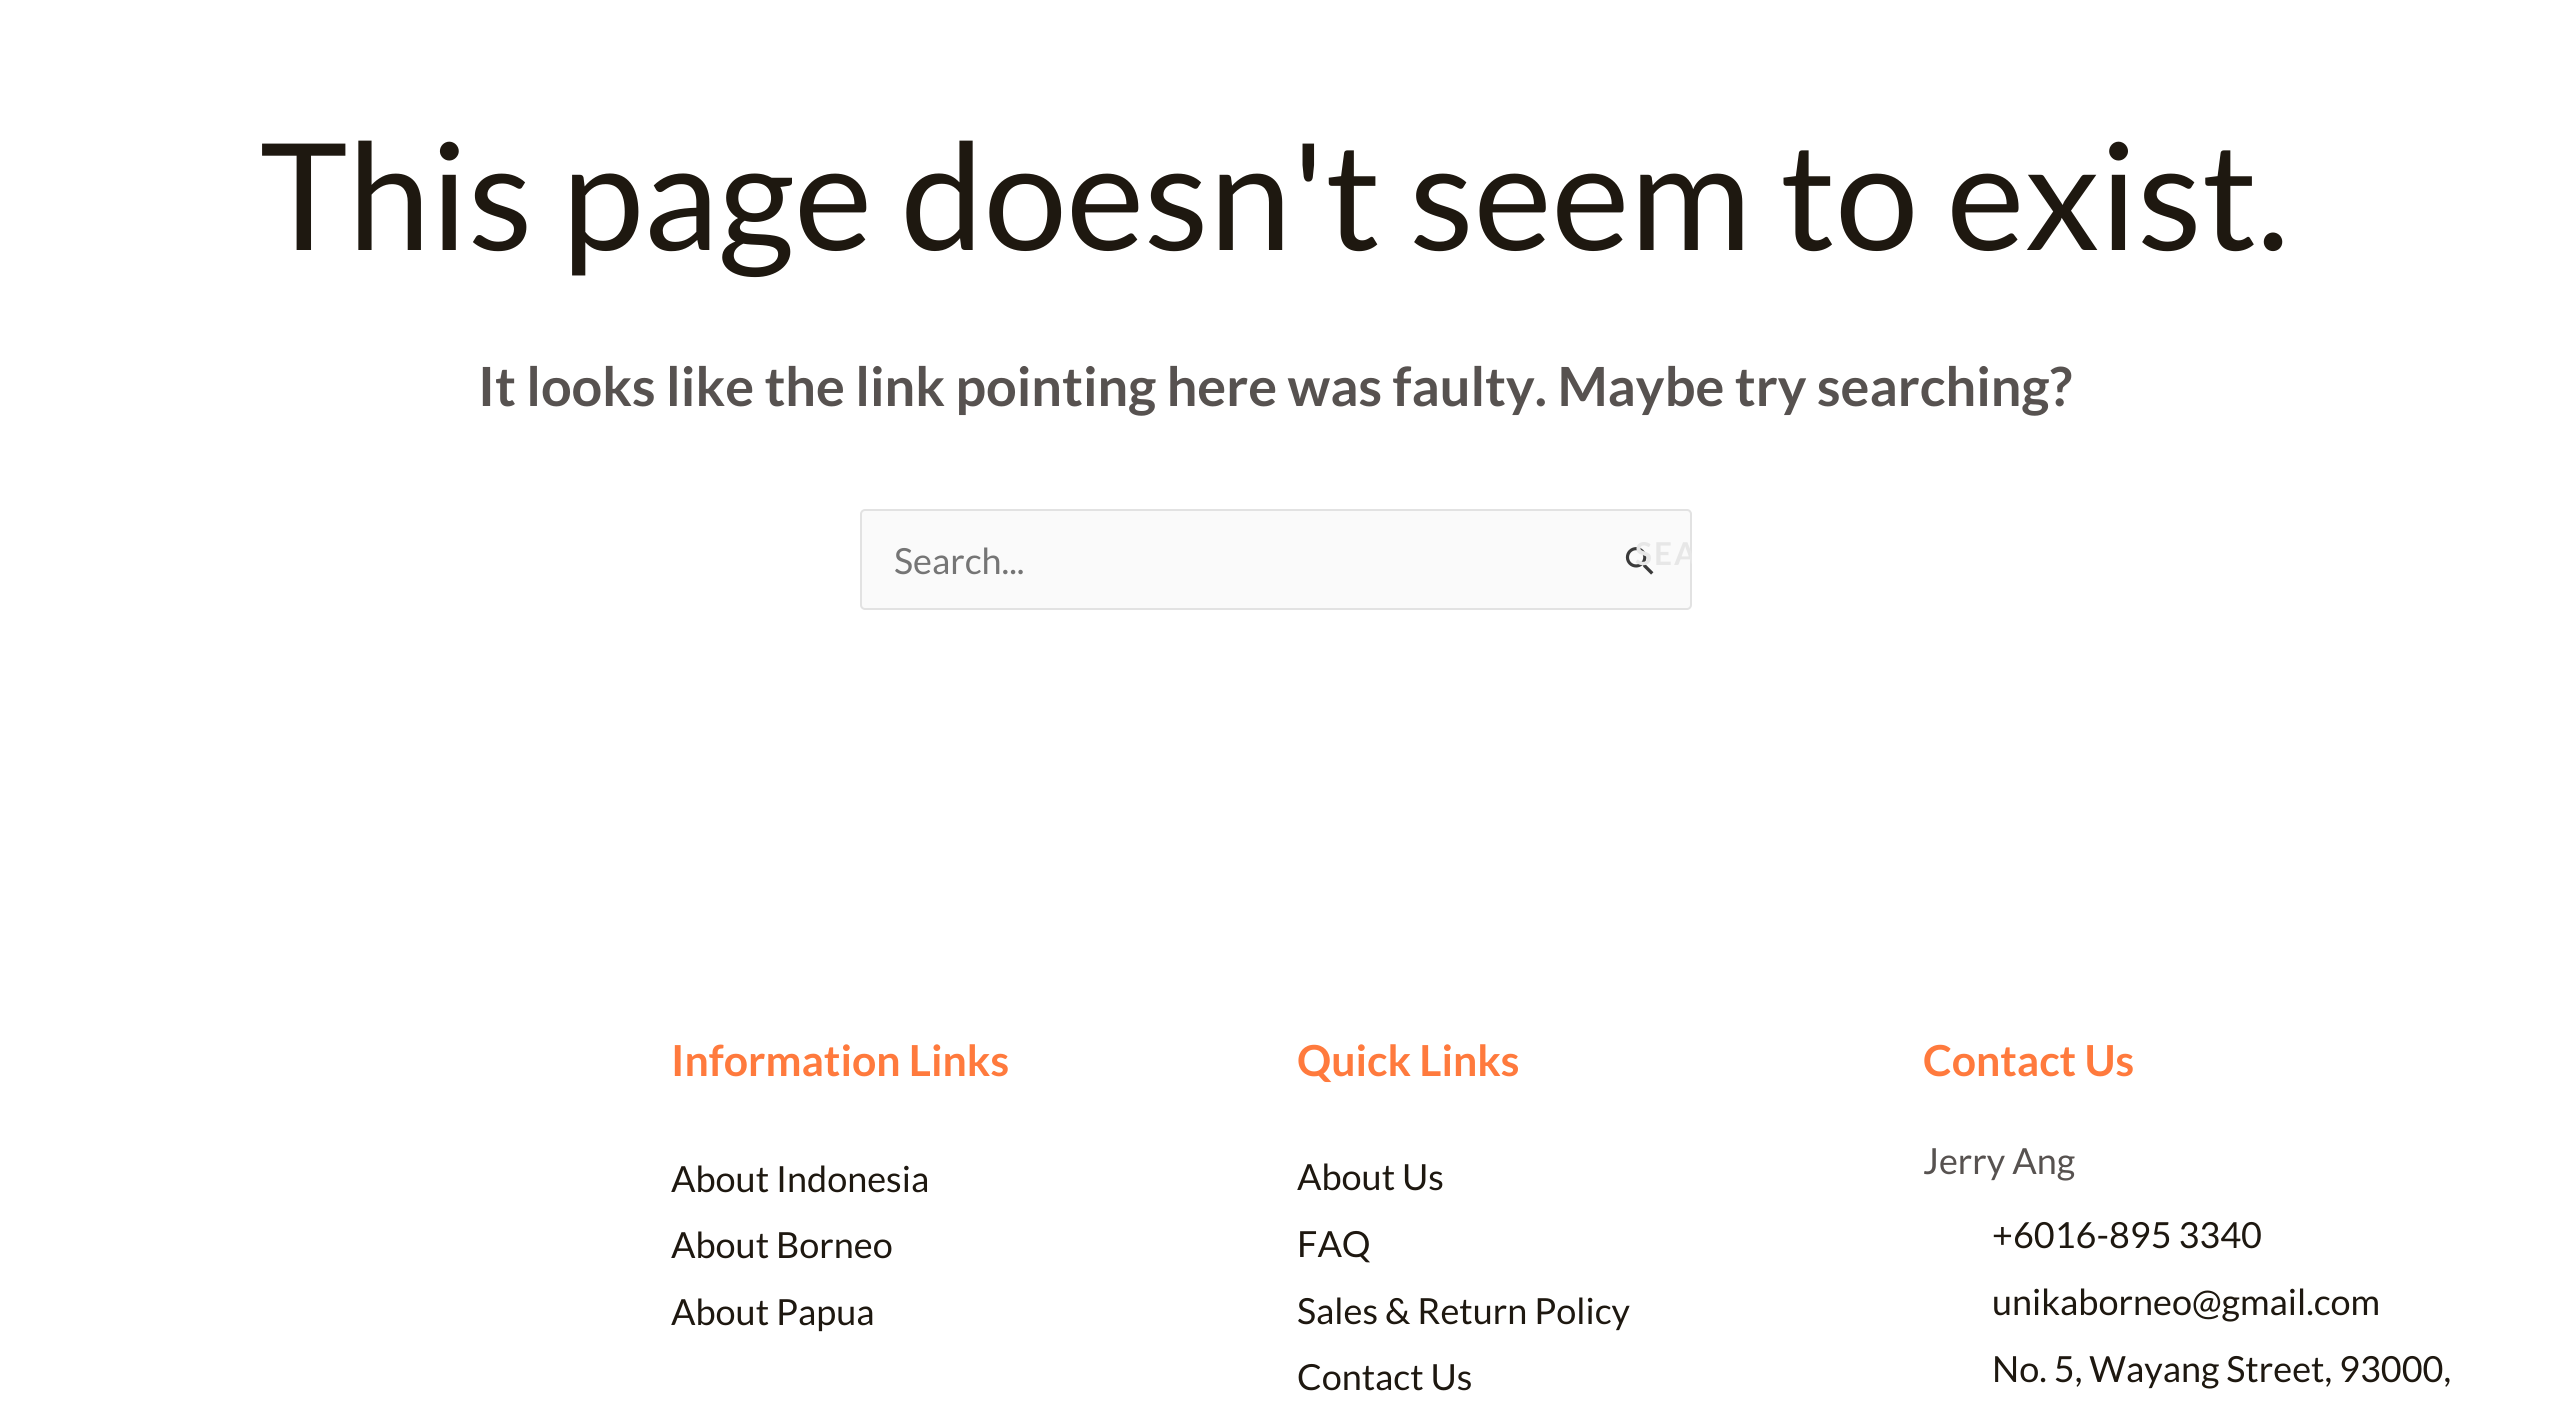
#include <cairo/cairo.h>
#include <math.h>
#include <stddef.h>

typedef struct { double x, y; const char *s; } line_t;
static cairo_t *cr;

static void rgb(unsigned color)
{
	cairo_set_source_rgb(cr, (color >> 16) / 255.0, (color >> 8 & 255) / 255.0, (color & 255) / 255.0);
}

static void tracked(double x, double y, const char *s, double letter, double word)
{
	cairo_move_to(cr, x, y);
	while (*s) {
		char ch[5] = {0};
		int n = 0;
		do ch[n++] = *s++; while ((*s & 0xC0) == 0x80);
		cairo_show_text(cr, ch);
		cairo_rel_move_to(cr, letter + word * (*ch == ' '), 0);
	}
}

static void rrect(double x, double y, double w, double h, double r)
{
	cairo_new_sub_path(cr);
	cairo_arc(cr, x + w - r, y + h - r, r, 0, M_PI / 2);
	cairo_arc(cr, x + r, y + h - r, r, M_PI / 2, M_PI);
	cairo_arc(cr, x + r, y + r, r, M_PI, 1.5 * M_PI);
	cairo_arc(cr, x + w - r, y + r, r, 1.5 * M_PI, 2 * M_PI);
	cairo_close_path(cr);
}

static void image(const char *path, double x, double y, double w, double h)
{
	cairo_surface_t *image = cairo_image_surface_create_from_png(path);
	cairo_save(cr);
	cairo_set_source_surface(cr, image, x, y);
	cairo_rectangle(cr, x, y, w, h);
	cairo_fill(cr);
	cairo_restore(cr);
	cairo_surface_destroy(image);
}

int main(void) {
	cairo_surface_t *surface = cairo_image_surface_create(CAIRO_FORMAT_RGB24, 2549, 1422);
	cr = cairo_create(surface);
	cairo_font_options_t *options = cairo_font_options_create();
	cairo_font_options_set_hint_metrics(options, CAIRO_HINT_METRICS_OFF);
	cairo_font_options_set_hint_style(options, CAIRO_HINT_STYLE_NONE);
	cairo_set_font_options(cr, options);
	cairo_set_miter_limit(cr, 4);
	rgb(0xffffff);
	cairo_paint(cr);
	rgb(0xfafafa);
	rrect(861, 510, 830, 99, 4);
	cairo_fill_preserve(cr);
	rgb(0xe2e2e2);
	cairo_stroke(cr);
	image("img/1.png", 1625, 547, 29, 28);
	cairo_select_font_face(cr, "Lato", CAIRO_FONT_SLANT_NORMAL, CAIRO_FONT_WEIGHT_NORMAL);
	cairo_set_font_size(cr, 148.5);
	rgb(0x1e1810);
	cairo_move_to(cr, 260, 250);
	cairo_show_text(cr, "This page doesn't seem to exist.");
	cairo_select_font_face(cr, "Lato", CAIRO_FONT_SLANT_NORMAL, CAIRO_FONT_WEIGHT_BOLD);
	cairo_set_font_size(cr, 54);
	rgb(0x575250);
	cairo_move_to(cr, 478, 406);
	cairo_show_text(cr, "It looks like the link pointing here was faulty. Maybe try searching?");
	cairo_select_font_face(cr, "Lato", CAIRO_FONT_SLANT_NORMAL, CAIRO_FONT_WEIGHT_NORMAL);
	cairo_set_font_size(cr, 36);
	rgb(0x757575);
	cairo_move_to(cr, 894, 574);
	cairo_show_text(cr, "Search...");
	cairo_save(cr);
	rrect(1591, 509, 101, 90, 5);
	cairo_clip(cr);
	cairo_select_font_face(cr, "Lato", CAIRO_FONT_SLANT_NORMAL, CAIRO_FONT_WEIGHT_BOLD);
	cairo_set_font_size(cr, 31.5);
	rgb(0xe7e7e7);
	tracked(1635, 565, "SEA", 2, 0);
	cairo_restore(cr);
	cairo_select_font_face(cr, "Lato", CAIRO_FONT_SLANT_NORMAL, CAIRO_FONT_WEIGHT_BOLD);
	cairo_set_font_size(cr, 42.75);
	rgb(0xff7a3d);
	cairo_move_to(cr, 671, 1076);
	cairo_show_text(cr, "Information Links");
	cairo_select_font_face(cr, "Lato", CAIRO_FONT_SLANT_NORMAL, CAIRO_FONT_WEIGHT_NORMAL);
	cairo_set_font_size(cr, 36);
	rgb(0x1e1810);
	{
		static const line_t items[] = {
			{671, 1192, "About Indonesia"},
			{671, 1258, "About Borneo"},
			{671, 1325, "About Papua"},
		};
		for (size_t i = 0; i < sizeof items / sizeof *items; i++) {
			cairo_move_to(cr, items[i].x, items[i].y);
			cairo_show_text(cr, items[i].s);
		}
	}
	cairo_select_font_face(cr, "Lato", CAIRO_FONT_SLANT_NORMAL, CAIRO_FONT_WEIGHT_BOLD);
	cairo_set_font_size(cr, 42.75);
	rgb(0xff7a3d);
	cairo_move_to(cr, 1297, 1076);
	cairo_show_text(cr, "Quick Links");
	cairo_select_font_face(cr, "Lato", CAIRO_FONT_SLANT_NORMAL, CAIRO_FONT_WEIGHT_NORMAL);
	cairo_set_font_size(cr, 36);
	rgb(0x1e1810);
	{
		static const line_t items[] = {
			{1297, 1190, "About Us"},
			{1297, 1257, "FAQ"},
			{1297, 1324, "Sales & Return Policy"},
			{1297, 1390, "Contact Us"},
		};
		for (size_t i = 0; i < sizeof items / sizeof *items; i++) {
			cairo_move_to(cr, items[i].x, items[i].y);
			cairo_show_text(cr, items[i].s);
		}
	}
	cairo_select_font_face(cr, "Lato", CAIRO_FONT_SLANT_NORMAL, CAIRO_FONT_WEIGHT_BOLD);
	cairo_set_font_size(cr, 42.75);
	rgb(0xff7a3d);
	cairo_move_to(cr, 1923, 1076);
	cairo_show_text(cr, "Contact Us");
	cairo_select_font_face(cr, "Lato", CAIRO_FONT_SLANT_NORMAL, CAIRO_FONT_WEIGHT_NORMAL);
	cairo_set_font_size(cr, 36);
	rgb(0x575250);
	cairo_move_to(cr, 1923, 1174);
	cairo_show_text(cr, "Jerry Ang");
	rgb(0x1e1810);
	{
		static const line_t items[] = {
			{1992, 1248, "+6016-895 3340"},
			{1992, 1315, "unikaborneo@gmail.com"},
			{1992, 1382, "No. 5, Wayang Street, 93000,"},
		};
		for (size_t i = 0; i < sizeof items / sizeof *items; i++) {
			cairo_move_to(cr, items[i].x, items[i].y);
			cairo_show_text(cr, items[i].s);
		}
	}
	cairo_surface_write_to_png(surface, "page.png");
	cairo_font_options_destroy(options);
	cairo_destroy(cr);
	cairo_surface_destroy(surface);
	return 0;
}
